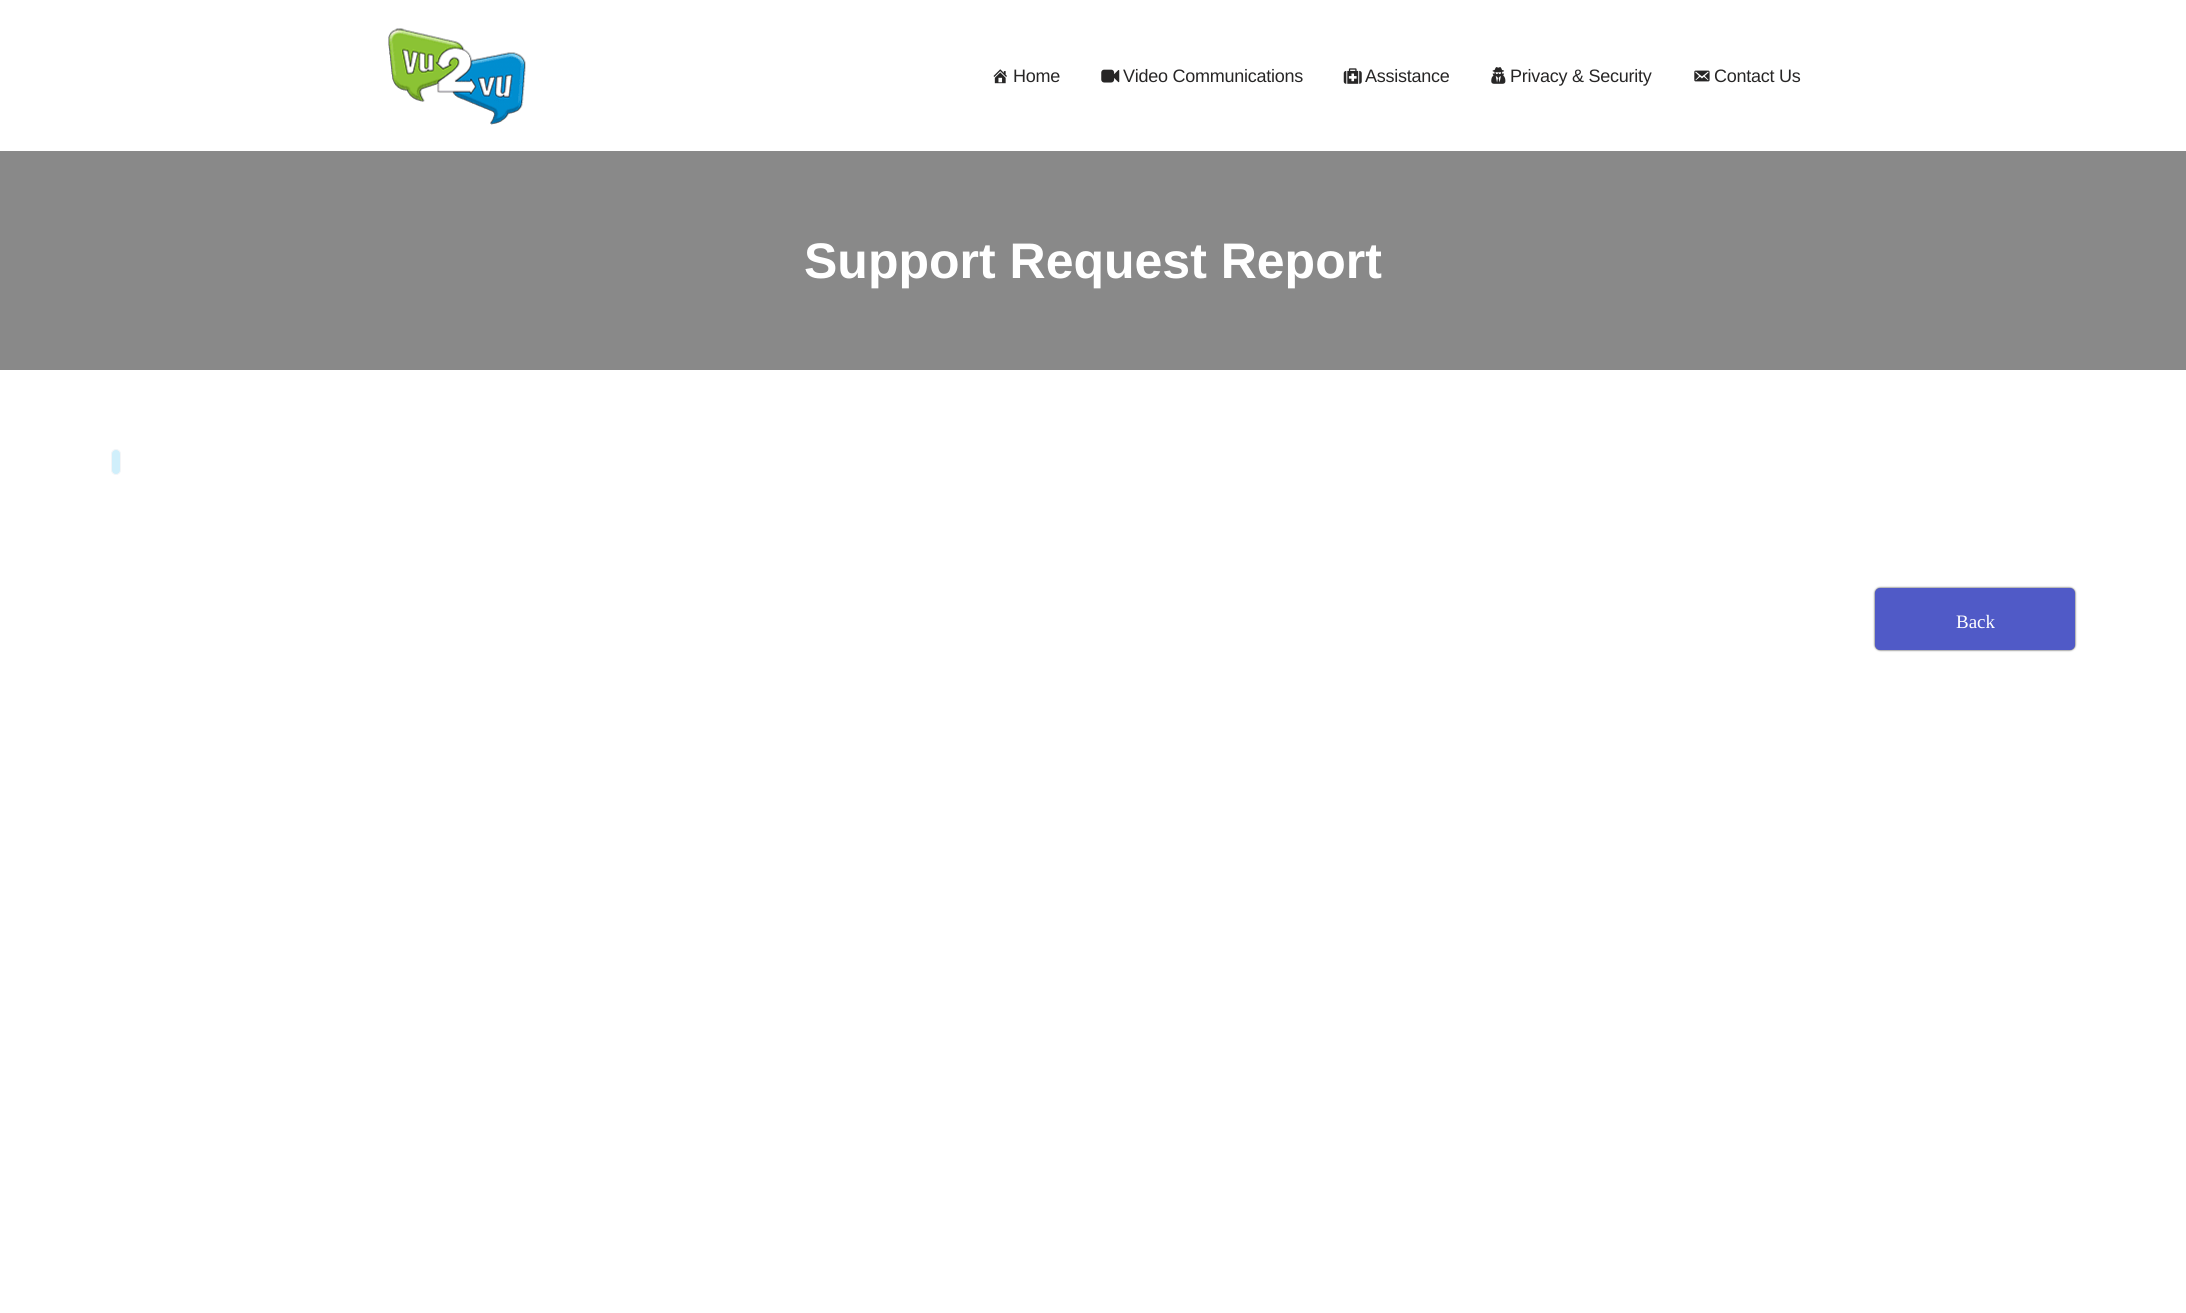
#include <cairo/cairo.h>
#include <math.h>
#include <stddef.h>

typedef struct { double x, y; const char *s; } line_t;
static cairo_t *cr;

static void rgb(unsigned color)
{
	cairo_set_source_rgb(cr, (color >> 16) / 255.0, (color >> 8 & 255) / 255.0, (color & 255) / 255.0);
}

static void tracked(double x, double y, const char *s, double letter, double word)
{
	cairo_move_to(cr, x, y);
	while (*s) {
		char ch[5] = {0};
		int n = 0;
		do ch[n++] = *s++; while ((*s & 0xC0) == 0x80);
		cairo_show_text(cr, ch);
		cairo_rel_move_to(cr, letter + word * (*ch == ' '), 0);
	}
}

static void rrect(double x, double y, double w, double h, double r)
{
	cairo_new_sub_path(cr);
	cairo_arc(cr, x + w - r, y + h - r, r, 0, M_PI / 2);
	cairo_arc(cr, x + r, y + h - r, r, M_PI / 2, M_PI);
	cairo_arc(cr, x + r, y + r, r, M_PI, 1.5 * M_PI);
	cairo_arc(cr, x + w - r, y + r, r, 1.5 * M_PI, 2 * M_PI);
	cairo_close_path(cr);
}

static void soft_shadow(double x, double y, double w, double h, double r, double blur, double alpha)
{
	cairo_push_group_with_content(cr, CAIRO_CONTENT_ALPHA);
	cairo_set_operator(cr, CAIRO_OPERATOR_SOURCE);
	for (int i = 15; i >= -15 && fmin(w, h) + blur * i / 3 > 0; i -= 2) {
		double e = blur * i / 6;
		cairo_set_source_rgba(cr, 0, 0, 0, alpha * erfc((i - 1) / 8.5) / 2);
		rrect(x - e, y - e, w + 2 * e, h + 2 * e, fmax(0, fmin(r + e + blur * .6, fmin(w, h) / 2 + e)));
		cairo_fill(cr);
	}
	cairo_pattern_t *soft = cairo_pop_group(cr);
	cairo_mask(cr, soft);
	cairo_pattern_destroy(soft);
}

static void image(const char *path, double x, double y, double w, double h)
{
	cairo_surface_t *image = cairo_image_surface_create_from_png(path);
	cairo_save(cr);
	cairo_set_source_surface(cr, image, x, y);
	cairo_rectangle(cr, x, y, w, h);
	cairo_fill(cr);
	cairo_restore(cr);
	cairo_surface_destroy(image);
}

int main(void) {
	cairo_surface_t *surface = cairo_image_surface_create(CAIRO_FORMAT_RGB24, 2186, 1313);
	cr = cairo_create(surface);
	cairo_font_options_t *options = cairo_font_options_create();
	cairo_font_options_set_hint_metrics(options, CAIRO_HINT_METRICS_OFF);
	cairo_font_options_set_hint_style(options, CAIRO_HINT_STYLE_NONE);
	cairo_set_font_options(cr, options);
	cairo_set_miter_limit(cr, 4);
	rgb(0xffffff);
	cairo_paint(cr);
	rgb(0x898989);
	cairo_rectangle(cr, 0, 151, 2186, 219);
	cairo_fill(cr);
	image("img/1.png", 388, 28, 138, 97);
	image("img/2.png", 993, 69, 14, 15);
	image("img/3.png", 1101, 69, 19, 14);
	image("img/4.png", 1343, 68, 19, 16);
	image("img/5.png", 1491, 67, 15, 17);
	image("img/6.png", 1694, 70, 16, 12);
	rgb(0xd0effb);
	rrect(111.5, 449.5, 9, 25, 4.5);
	cairo_fill_preserve(cr);
	rgb(0xf4f5f7);
	cairo_set_line_width(cr, 1);
	cairo_stroke(cr);
	rgb(0x333333);
	soft_shadow(1875, 588, 200, 62, 5, 1, 1);
	rgb(0x505ac7);
	rrect(1876.5, 589.5, 197, 59, 3.5);
	cairo_fill_preserve(cr);
	cairo_set_line_width(cr, 3);
	cairo_stroke(cr);
	cairo_select_font_face(cr, "Liberation Sans", CAIRO_FONT_SLANT_NORMAL, CAIRO_FONT_WEIGHT_NORMAL);
	cairo_set_font_size(cr, 18);
	rgb(0x272626);
	{
		static const line_t items[] = {
			{1013, 82, "Home"},
			{1123, 82, "Video Communications"},
			{1365, 82, "Assistance"},
			{1510, 82, "Privacy & Security"},
			{1714, 82, "Contact Us"},
		};
		for (size_t i = 0; i < sizeof items / sizeof *items; i++) {
			tracked(items[i].x, items[i].y, items[i].s, -0.25, 0);
		}
	}
	cairo_select_font_face(cr, "Liberation Sans", CAIRO_FONT_SLANT_NORMAL, CAIRO_FONT_WEIGHT_BOLD);
	cairo_set_font_size(cr, 50);
	rgb(0xffffff);
	cairo_move_to(cr, 804, 278);
	cairo_show_text(cr, "Support Request Report");
	cairo_select_font_face(cr, "Liberation Serif", CAIRO_FONT_SLANT_NORMAL, CAIRO_FONT_WEIGHT_NORMAL);
	cairo_set_font_size(cr, 19);
	cairo_move_to(cr, 1956, 628);
	cairo_show_text(cr, "Back");
	cairo_surface_write_to_png(surface, "page.png");
	cairo_font_options_destroy(options);
	cairo_destroy(cr);
	cairo_surface_destroy(surface);
	return 0;
}
